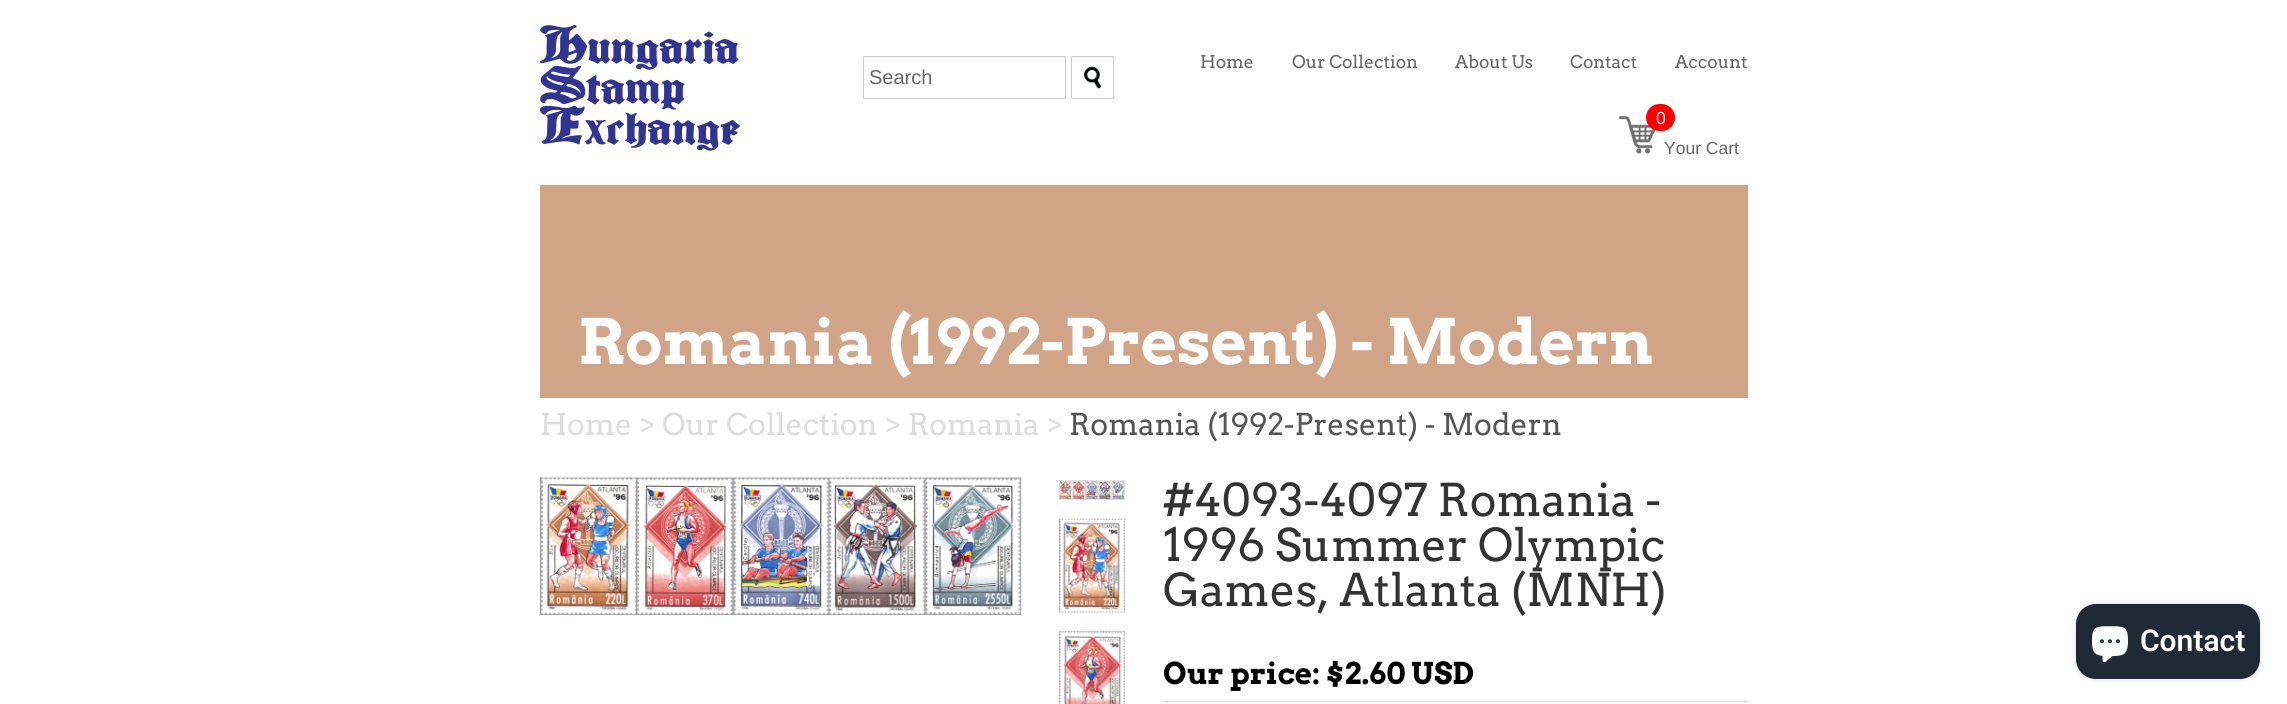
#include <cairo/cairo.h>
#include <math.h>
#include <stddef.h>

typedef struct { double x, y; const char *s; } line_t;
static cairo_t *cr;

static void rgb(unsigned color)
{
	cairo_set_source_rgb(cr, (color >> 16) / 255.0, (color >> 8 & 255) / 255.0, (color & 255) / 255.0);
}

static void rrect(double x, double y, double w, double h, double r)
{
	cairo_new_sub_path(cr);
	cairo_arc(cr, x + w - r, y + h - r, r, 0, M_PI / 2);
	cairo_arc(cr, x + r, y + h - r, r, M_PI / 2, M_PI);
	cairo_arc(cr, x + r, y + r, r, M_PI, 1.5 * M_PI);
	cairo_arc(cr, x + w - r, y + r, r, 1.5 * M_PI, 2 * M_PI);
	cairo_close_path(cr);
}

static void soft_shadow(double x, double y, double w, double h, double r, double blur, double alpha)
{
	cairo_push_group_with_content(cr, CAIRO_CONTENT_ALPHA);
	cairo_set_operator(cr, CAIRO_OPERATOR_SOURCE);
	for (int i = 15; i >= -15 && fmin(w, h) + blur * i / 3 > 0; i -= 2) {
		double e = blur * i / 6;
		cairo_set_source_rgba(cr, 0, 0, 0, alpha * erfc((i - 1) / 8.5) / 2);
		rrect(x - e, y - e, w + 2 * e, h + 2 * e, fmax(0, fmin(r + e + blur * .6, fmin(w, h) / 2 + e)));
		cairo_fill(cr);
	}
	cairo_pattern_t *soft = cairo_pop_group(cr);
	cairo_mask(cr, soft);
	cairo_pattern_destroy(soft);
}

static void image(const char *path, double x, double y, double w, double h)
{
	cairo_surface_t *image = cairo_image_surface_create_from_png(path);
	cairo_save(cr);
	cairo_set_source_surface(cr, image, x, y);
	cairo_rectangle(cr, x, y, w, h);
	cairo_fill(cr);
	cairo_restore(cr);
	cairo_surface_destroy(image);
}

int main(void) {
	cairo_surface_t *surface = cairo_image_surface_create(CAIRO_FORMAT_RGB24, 2287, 704);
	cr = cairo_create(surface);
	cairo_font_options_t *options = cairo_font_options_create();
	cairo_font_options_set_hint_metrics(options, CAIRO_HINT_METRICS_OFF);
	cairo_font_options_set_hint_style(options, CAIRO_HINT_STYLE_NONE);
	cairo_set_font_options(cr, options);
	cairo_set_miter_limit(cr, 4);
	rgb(0xffffff);
	cairo_paint(cr);
	image("img/1.png", 540, 25, 200, 126);
	rrect(863.5, 56.5, 202, 42, 0.5);
	rgb(0xcccccc);
	cairo_set_line_width(cr, 1);
	cairo_stroke(cr);
	rrect(1071.5, 56.5, 42, 42, 0.5);
	cairo_stroke(cr);
	image("img/2.png", 1084, 66, 17, 23);
	image("img/3.png", 1618, 116, 38, 38);
	rgb(0xff0000);
	rrect(1646, 104, 29, 27, 13.5);
	cairo_fill(cr);
	rgb(0xd1a488);
	cairo_rectangle(cr, 540, 185, 1208, 213);
	cairo_fill(cr);
	image("img/4.png", 540, 477, 482, 138);
	image("img/5.png", 1059, 480, 66, 20);
	image("img/6.png", 1058, 518, 67, 95);
	image("img/7.png", 1058, 631, 67, 73);
	rgb(0xdddddd);
	cairo_rectangle(cr, 1163, 701, 585, 1);
	cairo_fill(cr);
	rgb(0x000000);
	soft_shadow(2076, 604, 184, 75, 20, 3, 0.15);
	rgb(0x202a36);
	rrect(2076, 604, 184, 75, 20);
	cairo_fill(cr);
	image("img/8.png", 2092, 626, 36, 37);
	cairo_select_font_face(cr, "Liberation Sans", CAIRO_FONT_SLANT_NORMAL, CAIRO_FONT_WEIGHT_NORMAL);
	cairo_set_font_size(cr, 20);
	rgb(0x666666);
	cairo_move_to(cr, 869, 84);
	cairo_show_text(cr, "Search");
	cairo_select_font_face(cr, "Arvo", CAIRO_FONT_SLANT_NORMAL, CAIRO_FONT_WEIGHT_NORMAL);
	cairo_set_font_size(cr, 17.5);
	{
		static const line_t items[] = {
			{1200, 68, "Home"},
			{1292, 68, "Our Collection"},
			{1455, 68, "About Us"},
			{1570, 68, "Contact"},
			{1675, 68, "Account"},
		};
		for (size_t i = 0; i < sizeof items / sizeof *items; i++) {
			cairo_move_to(cr, items[i].x, items[i].y);
			cairo_show_text(cr, items[i].s);
		}
	}
	cairo_select_font_face(cr, "Liberation Sans", CAIRO_FONT_SLANT_NORMAL, CAIRO_FONT_WEIGHT_NORMAL);
	rgb(0xffffff);
	cairo_move_to(cr, 1656, 124);
	cairo_show_text(cr, "0");
	rgb(0x666666);
	cairo_move_to(cr, 1664, 154);
	cairo_show_text(cr, "Your Cart");
	cairo_select_font_face(cr, "Arvo", CAIRO_FONT_SLANT_NORMAL, CAIRO_FONT_WEIGHT_BOLD);
	cairo_set_font_size(cr, 62.5);
	rgb(0xffffff);
	cairo_move_to(cr, 578, 364);
	cairo_show_text(cr, "Romania (1992-Present) - Modern");
	cairo_select_font_face(cr, "Arvo", CAIRO_FONT_SLANT_NORMAL, CAIRO_FONT_WEIGHT_NORMAL);
	cairo_set_font_size(cr, 30);
	rgb(0xdddddd);
	cairo_move_to(cr, 540, 435);
	cairo_show_text(cr, "Home > Our Collection > Romania >");
	rgb(0x555555);
	cairo_move_to(cr, 1069, 435);
	cairo_show_text(cr, "Romania (1992-Present) - Modern");
	cairo_set_font_size(cr, 45);
	rgb(0x333333);
	{
		static const line_t items[] = {
			{1163, 516, "#4093-4097 Romania -"},
			{1163, 561, "1996 Summer Olympic"},
			{1163, 606, "Games, Atlanta (MNH)"},
		};
		for (size_t i = 0; i < sizeof items / sizeof *items; i++) {
			cairo_move_to(cr, items[i].x, items[i].y);
			cairo_show_text(cr, items[i].s);
		}
	}
	cairo_select_font_face(cr, "Arvo", CAIRO_FONT_SLANT_NORMAL, CAIRO_FONT_WEIGHT_BOLD);
	cairo_set_font_size(cr, 30);
	rgb(0x000000);
	cairo_move_to(cr, 1163, 684);
	cairo_show_text(cr, "Our price: $2.60 USD");
	cairo_select_font_face(cr, "Roboto SemiBold", CAIRO_FONT_SLANT_NORMAL, CAIRO_FONT_WEIGHT_NORMAL);
	rgb(0xffffff);
	cairo_move_to(cr, 2140, 651);
	cairo_show_text(cr, "Contact");
	cairo_surface_write_to_png(surface, "page.png");
	cairo_font_options_destroy(options);
	cairo_destroy(cr);
	cairo_surface_destroy(surface);
	return 0;
}
